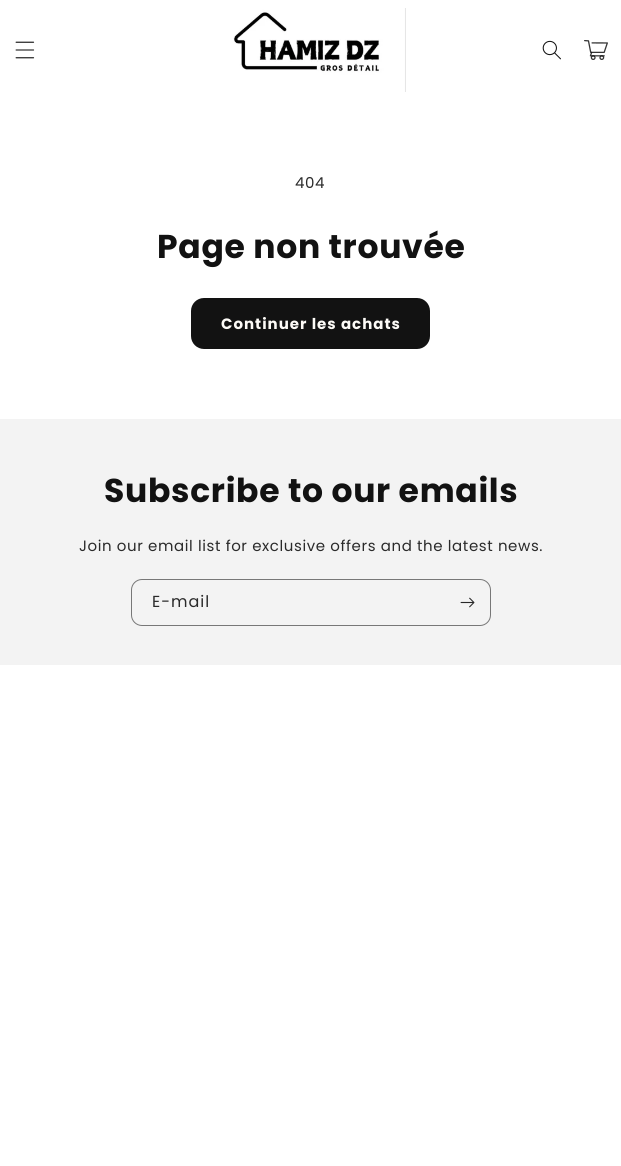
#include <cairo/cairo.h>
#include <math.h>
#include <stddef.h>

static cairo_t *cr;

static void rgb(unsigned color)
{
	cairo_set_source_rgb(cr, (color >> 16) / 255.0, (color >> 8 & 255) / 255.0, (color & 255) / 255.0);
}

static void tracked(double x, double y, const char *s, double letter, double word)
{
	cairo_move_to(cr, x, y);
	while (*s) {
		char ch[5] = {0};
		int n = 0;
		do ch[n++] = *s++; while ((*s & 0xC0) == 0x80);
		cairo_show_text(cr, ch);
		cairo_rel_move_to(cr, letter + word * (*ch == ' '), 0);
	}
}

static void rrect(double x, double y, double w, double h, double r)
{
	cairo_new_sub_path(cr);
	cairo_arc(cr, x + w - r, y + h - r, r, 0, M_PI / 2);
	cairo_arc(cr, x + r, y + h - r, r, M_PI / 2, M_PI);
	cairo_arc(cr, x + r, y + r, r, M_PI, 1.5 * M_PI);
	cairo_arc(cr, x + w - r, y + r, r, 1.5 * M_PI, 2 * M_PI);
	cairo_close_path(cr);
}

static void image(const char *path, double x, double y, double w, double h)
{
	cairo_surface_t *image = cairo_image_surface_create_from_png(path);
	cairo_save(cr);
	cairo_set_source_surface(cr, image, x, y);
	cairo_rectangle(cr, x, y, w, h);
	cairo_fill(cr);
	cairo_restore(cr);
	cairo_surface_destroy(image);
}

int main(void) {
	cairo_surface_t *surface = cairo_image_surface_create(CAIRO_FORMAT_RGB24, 621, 1166);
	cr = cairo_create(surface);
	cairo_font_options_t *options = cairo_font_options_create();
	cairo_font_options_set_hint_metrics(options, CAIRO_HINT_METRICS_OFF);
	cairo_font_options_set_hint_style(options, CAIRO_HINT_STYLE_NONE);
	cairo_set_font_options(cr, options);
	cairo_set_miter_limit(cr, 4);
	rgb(0xffffff);
	cairo_paint(cr);
	image("img/1.png", 15, 41, 20, 18);
	image("img/2.png", 233, 8, 173, 84);
	image("img/3.png", 542, 40, 19, 20);
	image("img/4.png", 584, 40, 24, 20);
	rgb(0x121212);
	rrect(191, 298, 239, 51, 13);
	cairo_fill(cr);
	rgb(0xf3f3f3);
	cairo_rectangle(cr, 0, 419, 621, 246);
	cairo_fill(cr);
	rrect(131.5, 579.5, 359, 46, 10.5);
	rgb(0x777777);
	cairo_set_line_width(cr, 1);
	cairo_stroke(cr);
	image("img/5.png", 460, 597, 15, 11);
	cairo_select_font_face(cr, "Poppins", CAIRO_FONT_SLANT_NORMAL, CAIRO_FONT_WEIGHT_NORMAL);
	cairo_set_font_size(cr, 15);
	rgb(0x2a2a2a);
	tracked(295, 188, "404", 0.6, 0);
	cairo_select_font_face(cr, "Poppins", CAIRO_FONT_SLANT_NORMAL, CAIRO_FONT_WEIGHT_BOLD);
	cairo_set_font_size(cr, 33);
	rgb(0x121212);
	tracked(157, 258, "Page non trouvée", 0.7, 0);
	cairo_set_font_size(cr, 15);
	rgb(0xfdfbf7);
	tracked(221, 329, "Continuer les achats", 1, 0);
	cairo_set_font_size(cr, 33);
	rgb(0x121212);
	tracked(104, 502, "Subscribe to our emails", 0.7, 0);
	cairo_select_font_face(cr, "Poppins", CAIRO_FONT_SLANT_NORMAL, CAIRO_FONT_WEIGHT_NORMAL);
	cairo_set_font_size(cr, 15);
	rgb(0x2a2a2a);
	tracked(79, 551, "Join our email list for exclusive offers and the latest news.", 0.6, 0);
	cairo_set_font_size(cr, 16);
	tracked(152, 607, "E-mail", 1, 0);
	cairo_surface_write_to_png(surface, "page.png");
	cairo_font_options_destroy(options);
	cairo_destroy(cr);
	cairo_surface_destroy(surface);
	return 0;
}
